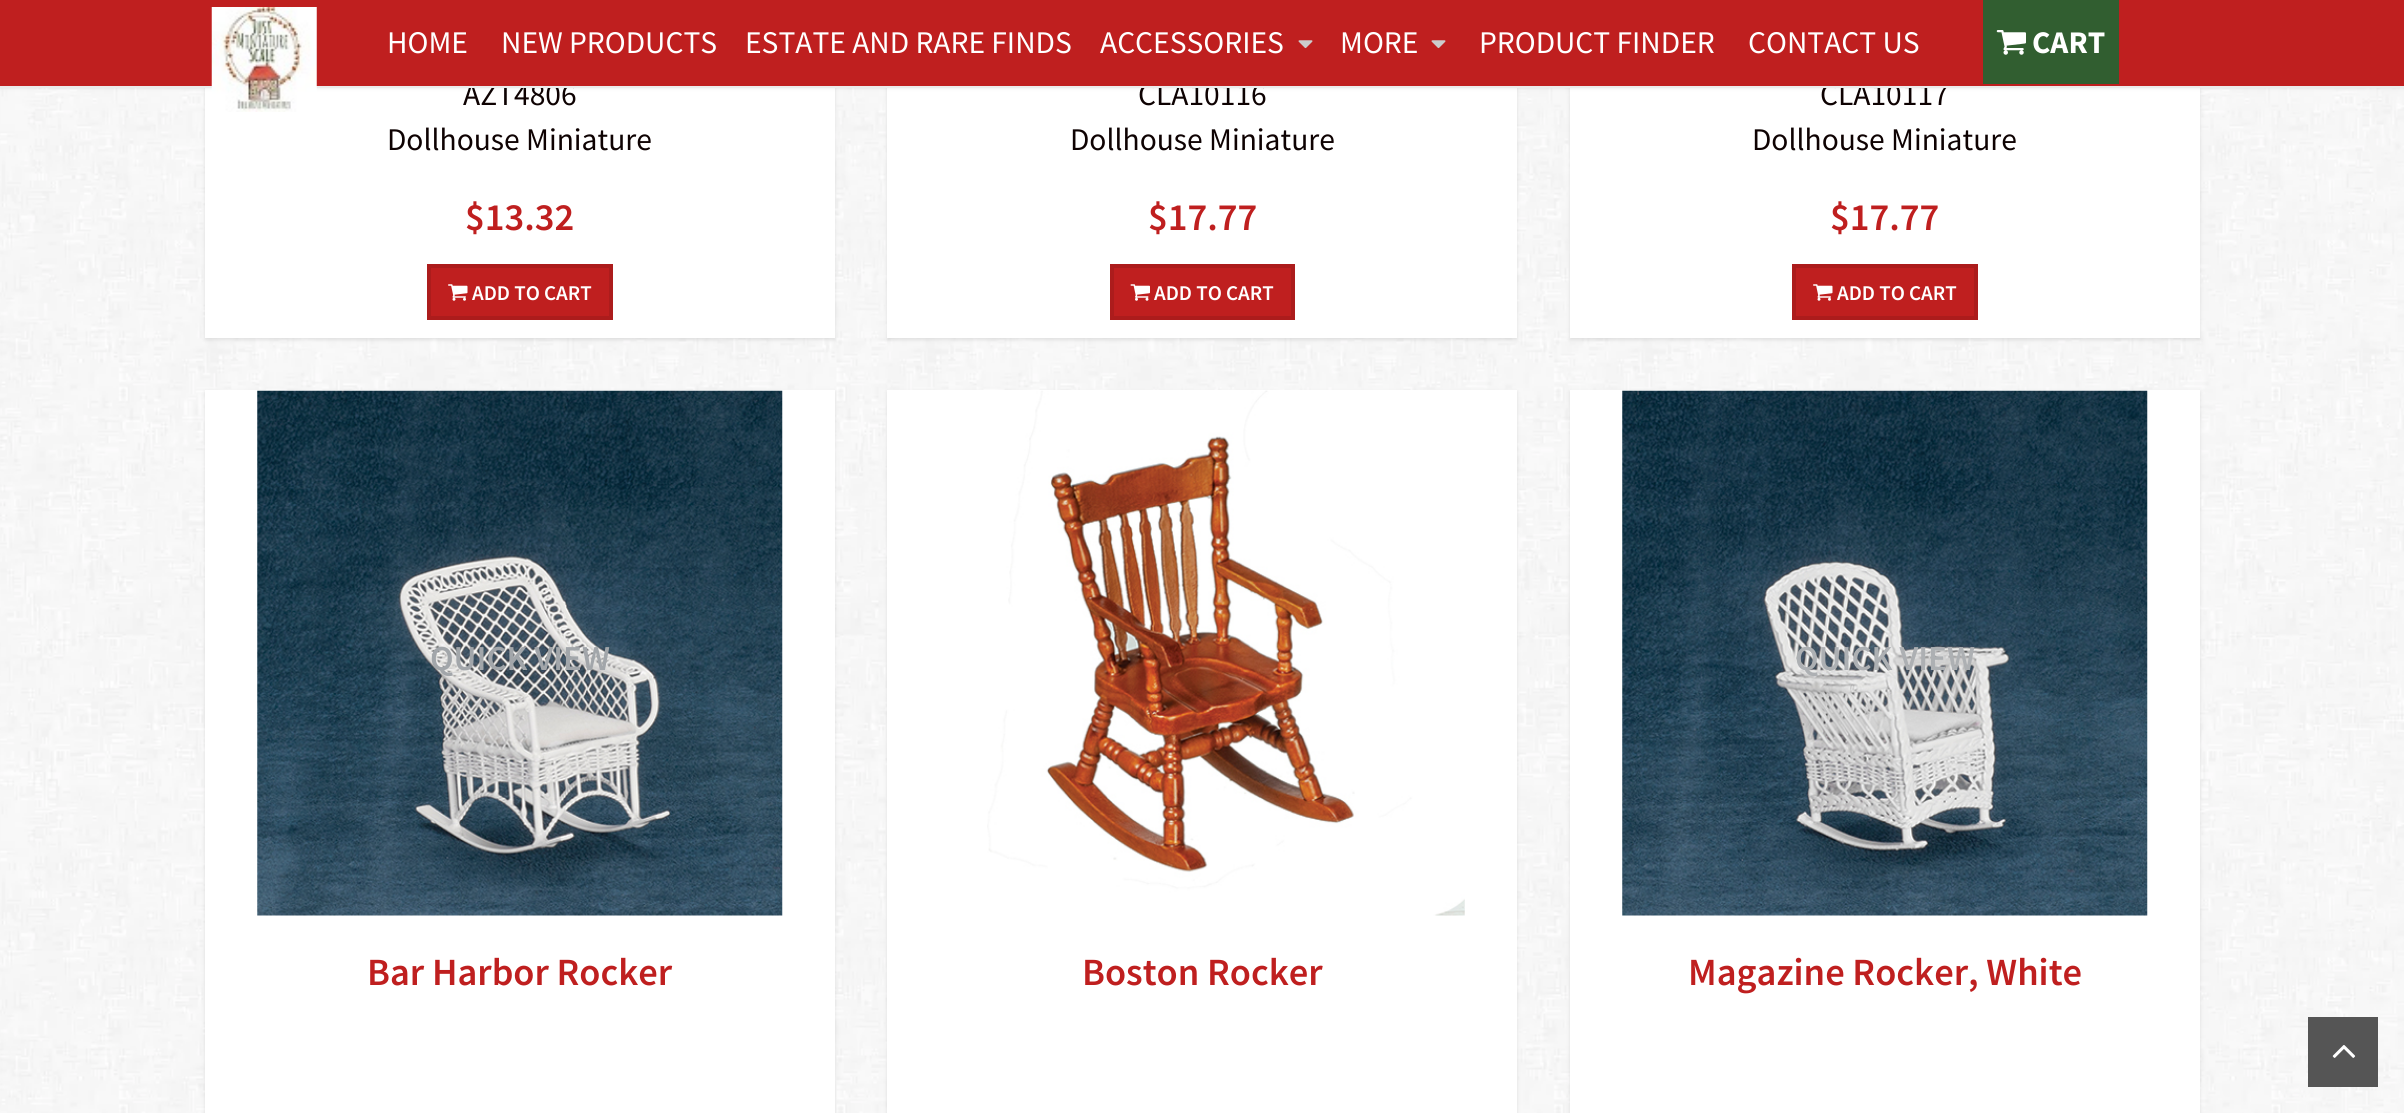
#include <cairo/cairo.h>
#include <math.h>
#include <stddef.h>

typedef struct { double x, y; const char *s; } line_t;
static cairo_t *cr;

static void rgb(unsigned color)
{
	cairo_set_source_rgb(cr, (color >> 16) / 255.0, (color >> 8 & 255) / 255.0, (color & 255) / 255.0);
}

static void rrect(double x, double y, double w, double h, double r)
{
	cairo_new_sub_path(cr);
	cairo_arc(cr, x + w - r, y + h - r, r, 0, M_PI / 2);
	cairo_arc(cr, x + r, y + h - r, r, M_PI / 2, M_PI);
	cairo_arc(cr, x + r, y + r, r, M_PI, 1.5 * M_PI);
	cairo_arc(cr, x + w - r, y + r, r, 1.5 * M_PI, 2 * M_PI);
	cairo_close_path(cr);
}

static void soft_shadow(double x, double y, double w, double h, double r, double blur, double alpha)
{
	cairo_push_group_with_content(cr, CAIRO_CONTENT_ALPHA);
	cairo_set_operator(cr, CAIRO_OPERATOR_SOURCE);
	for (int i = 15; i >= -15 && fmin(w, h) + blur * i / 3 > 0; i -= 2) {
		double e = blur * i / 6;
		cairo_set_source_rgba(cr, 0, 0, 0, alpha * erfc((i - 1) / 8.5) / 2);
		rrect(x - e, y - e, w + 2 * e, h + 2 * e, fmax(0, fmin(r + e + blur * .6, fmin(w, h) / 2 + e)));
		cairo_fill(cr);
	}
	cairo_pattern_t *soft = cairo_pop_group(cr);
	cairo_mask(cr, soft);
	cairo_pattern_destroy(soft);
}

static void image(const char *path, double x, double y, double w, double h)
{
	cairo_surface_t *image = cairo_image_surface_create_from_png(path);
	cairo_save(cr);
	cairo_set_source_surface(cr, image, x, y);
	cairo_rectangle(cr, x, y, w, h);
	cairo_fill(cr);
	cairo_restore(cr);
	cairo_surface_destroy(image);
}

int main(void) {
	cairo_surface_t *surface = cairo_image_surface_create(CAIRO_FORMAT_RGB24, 2404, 1113);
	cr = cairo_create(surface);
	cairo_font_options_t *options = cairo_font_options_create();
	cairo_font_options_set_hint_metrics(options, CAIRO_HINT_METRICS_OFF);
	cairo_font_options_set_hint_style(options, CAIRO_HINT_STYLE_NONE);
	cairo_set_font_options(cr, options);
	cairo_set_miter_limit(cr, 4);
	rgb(0xffffff);
	cairo_paint(cr);
	image("img/1.png", 0, 88, 2404, 1025);
	rgb(0x000000);
	soft_shadow(205, -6, 630, 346, 0, 2, 0.1);
	rgb(0xffffff);
	cairo_rectangle(cr, 205, 88, 630, 250);
	cairo_fill(cr);
	rgb(0x000000);
	soft_shadow(887, -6, 630, 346, 0, 2, 0.1);
	rgb(0xffffff);
	cairo_rectangle(cr, 887, 88, 630, 250);
	cairo_fill(cr);
	rgb(0x000000);
	soft_shadow(1570, -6, 630, 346, 0, 2, 0.1);
	rgb(0xffffff);
	cairo_rectangle(cr, 1570, 88, 630, 250);
	cairo_fill(cr);
	rgb(0x000000);
	soft_shadow(0, 0, 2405, 88, 0, 2, 0.1);
	rgb(0xbf1f1f);
	cairo_rectangle(cr, 429, 266, 182, 52);
	cairo_fill_preserve(cr);
	rgb(0xac1c1c);
	cairo_set_line_width(cr, 4);
	cairo_stroke(cr);
	image("img/5.png", 448, 284, 20, 17);
	rgb(0xbf1f1f);
	cairo_rectangle(cr, 1112, 266, 181, 52);
	cairo_fill_preserve(cr);
	rgb(0xac1c1c);
	cairo_stroke(cr);
	image("img/6.png", 1130, 284, 20, 17);
	rgb(0xbf1f1f);
	cairo_rectangle(cr, 1794, 266, 182, 52);
	cairo_fill_preserve(cr);
	rgb(0xac1c1c);
	cairo_stroke(cr);
	image("img/5.png", 1813, 284, 20, 17);
	rgb(0x000000);
	soft_shadow(205, 392, 630, 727, 0, 2, 0.1);
	rgb(0xffffff);
	cairo_rectangle(cr, 205, 390, 630, 723);
	cairo_fill(cr);
	image("img/7.png", 257, 390, 526, 526);
	rgb(0x000000);
	soft_shadow(887, 392, 630, 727, 0, 2, 0.1);
	rgb(0xffffff);
	cairo_rectangle(cr, 887, 390, 630, 723);
	cairo_fill(cr);
	image("img/8.png", 987, 390, 478, 526);
	rgb(0x000000);
	soft_shadow(1570, 392, 630, 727, 0, 2, 0.1);
	rgb(0xffffff);
	cairo_rectangle(cr, 1570, 390, 630, 723);
	cairo_fill(cr);
	image("img/9.png", 1622, 390, 526, 526);
	rgb(0x555555);
	cairo_rectangle(cr, 2308, 1017, 70, 70);
	cairo_fill(cr);
	image("img/10.png", 2332, 1045, 24, 13);
	cairo_select_font_face(cr, "Source Sans Pro", CAIRO_FONT_SLANT_NORMAL, CAIRO_FONT_WEIGHT_NORMAL);
	cairo_set_font_size(cr, 31.5);
	rgb(0x0e0202);
	cairo_move_to(cr, 463, 105);
	cairo_show_text(cr, "AZT4806");
	cairo_move_to(cr, 387, 150);
	cairo_show_text(cr, "Dollhouse Miniature");
	cairo_select_font_face(cr, "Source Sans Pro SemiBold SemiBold", CAIRO_FONT_SLANT_NORMAL, CAIRO_FONT_WEIGHT_NORMAL);
	cairo_set_font_size(cr, 38.5);
	rgb(0xbf1f1f);
	cairo_move_to(cr, 465, 230);
	cairo_show_text(cr, "$13.32");
	cairo_set_font_size(cr, 21);
	rgb(0xffffff);
	cairo_move_to(cr, 472, 300);
	cairo_show_text(cr, "ADD TO CART");
	cairo_select_font_face(cr, "Source Sans Pro", CAIRO_FONT_SLANT_NORMAL, CAIRO_FONT_WEIGHT_NORMAL);
	cairo_set_font_size(cr, 31.5);
	rgb(0x0e0202);
	cairo_move_to(cr, 1138, 105);
	cairo_show_text(cr, "CLA10116");
	cairo_move_to(cr, 1070, 150);
	cairo_show_text(cr, "Dollhouse Miniature");
	cairo_select_font_face(cr, "Source Sans Pro SemiBold SemiBold", CAIRO_FONT_SLANT_NORMAL, CAIRO_FONT_WEIGHT_NORMAL);
	cairo_set_font_size(cr, 38.5);
	rgb(0xbf1f1f);
	cairo_move_to(cr, 1148, 230);
	cairo_show_text(cr, "$17.77");
	cairo_set_font_size(cr, 21);
	rgb(0xffffff);
	cairo_move_to(cr, 1154, 300);
	cairo_show_text(cr, "ADD TO CART");
	cairo_select_font_face(cr, "Source Sans Pro", CAIRO_FONT_SLANT_NORMAL, CAIRO_FONT_WEIGHT_NORMAL);
	cairo_set_font_size(cr, 31.5);
	rgb(0x0e0202);
	cairo_move_to(cr, 1820, 105);
	cairo_show_text(cr, "CLA10117");
	rgb(0xbf1f1f);
	cairo_rectangle(cr, 0, 0, 2404, 86);
	cairo_fill(cr);
	rgb(0x315e30);
	cairo_rectangle(cr, 1983, 0, 136, 84);
	cairo_fill(cr);
	cairo_select_font_face(cr, "Source Sans Pro", CAIRO_FONT_SLANT_NORMAL, CAIRO_FONT_WEIGHT_BOLD);
	rgb(0xffffff);
	cairo_move_to(cr, 2032, 53);
	cairo_show_text(cr, "CART");
	image("img/4.png", 1996, 30, 30, 25);
	cairo_select_font_face(cr, "Source Sans Pro", CAIRO_FONT_SLANT_NORMAL, CAIRO_FONT_WEIGHT_NORMAL);
	cairo_move_to(cr, 1748, 53);
	cairo_show_text(cr, "CONTACT US");
	cairo_move_to(cr, 1479, 53);
	cairo_show_text(cr, "PRODUCT FINDER");
	image("img/3.png", 1431, 40, 15, 9);
	cairo_move_to(cr, 1340, 53);
	cairo_show_text(cr, "MORE");
	image("img/3.png", 1298, 40, 15, 9);
	{
		static const line_t items[] = {
			{1100, 53, "ACCESSORIES"},
			{745, 53, "ESTATE AND RARE FINDS"},
			{501, 53, "NEW PRODUCTS"},
			{387, 53, "HOME"},
		};
		for (size_t i = 0; i < sizeof items / sizeof *items; i++) {
			cairo_move_to(cr, items[i].x, items[i].y);
			cairo_show_text(cr, items[i].s);
		}
	}
	rgb(0xebebeb);
	cairo_rectangle(cr, 0, 86, 2404, 2);
	cairo_fill(cr);
	image("img/2.png", 211, 7, 106, 105);
	rgb(0x0e0202);
	cairo_move_to(cr, 1752, 150);
	cairo_show_text(cr, "Dollhouse Miniature");
	cairo_select_font_face(cr, "Source Sans Pro SemiBold SemiBold", CAIRO_FONT_SLANT_NORMAL, CAIRO_FONT_WEIGHT_NORMAL);
	cairo_set_font_size(cr, 38.5);
	rgb(0xbf1f1f);
	cairo_move_to(cr, 1830, 230);
	cairo_show_text(cr, "$17.77");
	cairo_set_font_size(cr, 21);
	rgb(0xffffff);
	cairo_move_to(cr, 1837, 300);
	cairo_show_text(cr, "ADD TO CART");
	cairo_set_font_size(cr, 35);
	rgb(0xa2a6aa);
	cairo_move_to(cr, 430, 670);
	cairo_show_text(cr, "QUICK VIEW");
	cairo_set_font_size(cr, 38.5);
	rgb(0xbf1f1f);
	cairo_move_to(cr, 367, 985);
	cairo_show_text(cr, "Bar Harbor Rocker");
	cairo_move_to(cr, 1082, 985);
	cairo_show_text(cr, "Boston Rocker");
	cairo_set_font_size(cr, 35);
	rgb(0xadb0b3);
	cairo_move_to(cr, 1795, 670);
	cairo_show_text(cr, "QUICK VIEW");
	cairo_set_font_size(cr, 38.5);
	rgb(0xbf1f1f);
	cairo_move_to(cr, 1688, 985);
	cairo_show_text(cr, "Magazine Rocker, White");
	cairo_surface_write_to_png(surface, "page.png");
	cairo_font_options_destroy(options);
	cairo_destroy(cr);
	cairo_surface_destroy(surface);
	return 0;
}
